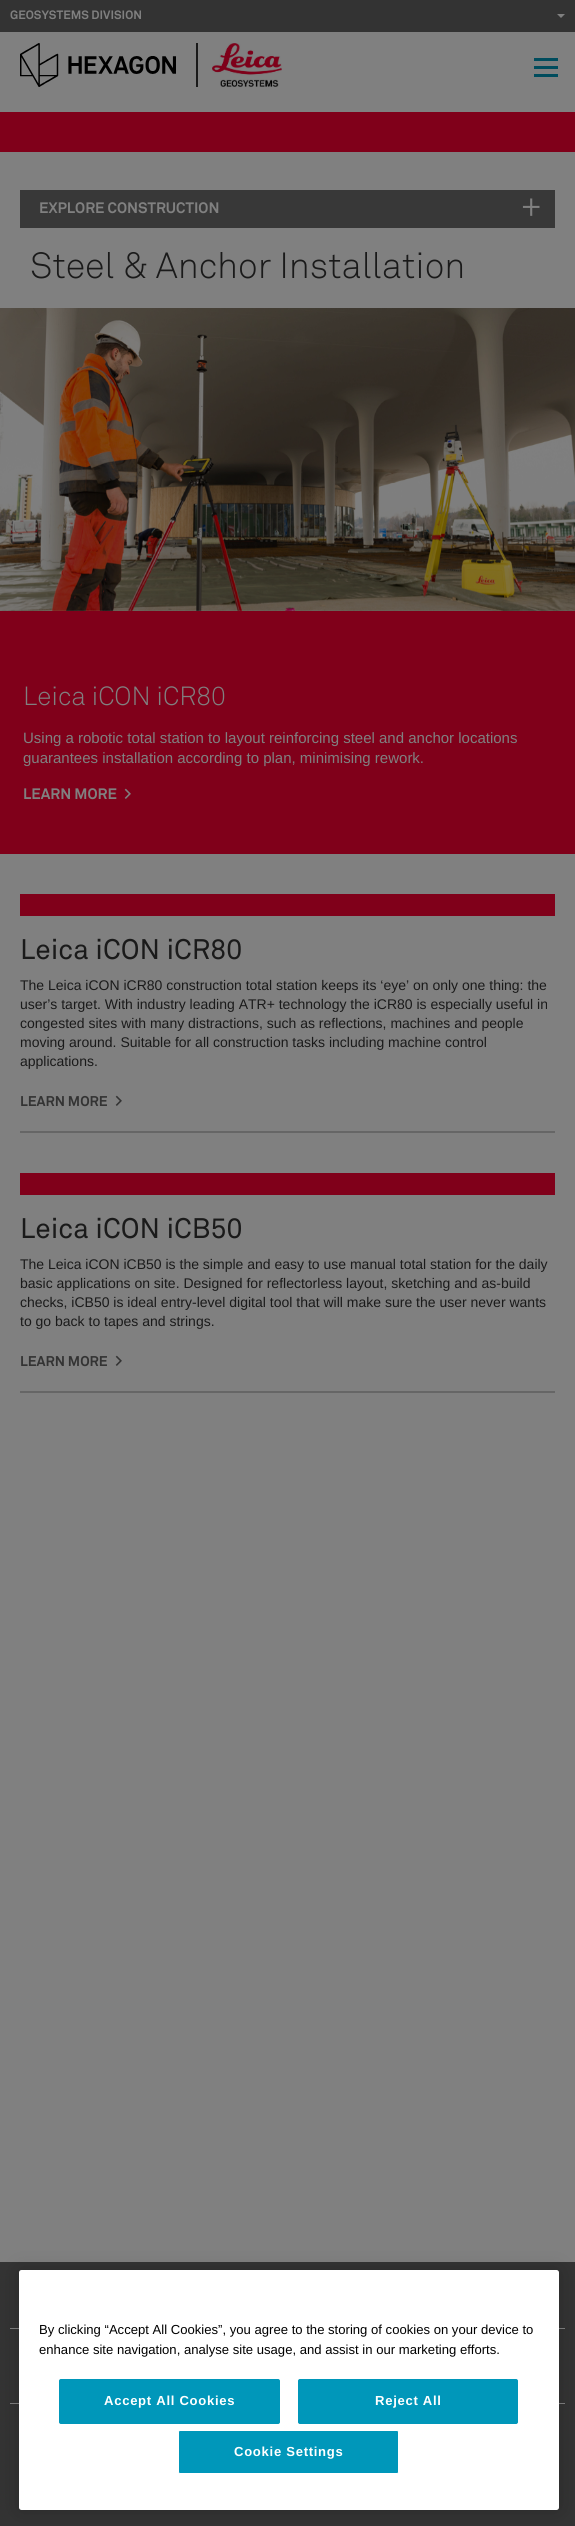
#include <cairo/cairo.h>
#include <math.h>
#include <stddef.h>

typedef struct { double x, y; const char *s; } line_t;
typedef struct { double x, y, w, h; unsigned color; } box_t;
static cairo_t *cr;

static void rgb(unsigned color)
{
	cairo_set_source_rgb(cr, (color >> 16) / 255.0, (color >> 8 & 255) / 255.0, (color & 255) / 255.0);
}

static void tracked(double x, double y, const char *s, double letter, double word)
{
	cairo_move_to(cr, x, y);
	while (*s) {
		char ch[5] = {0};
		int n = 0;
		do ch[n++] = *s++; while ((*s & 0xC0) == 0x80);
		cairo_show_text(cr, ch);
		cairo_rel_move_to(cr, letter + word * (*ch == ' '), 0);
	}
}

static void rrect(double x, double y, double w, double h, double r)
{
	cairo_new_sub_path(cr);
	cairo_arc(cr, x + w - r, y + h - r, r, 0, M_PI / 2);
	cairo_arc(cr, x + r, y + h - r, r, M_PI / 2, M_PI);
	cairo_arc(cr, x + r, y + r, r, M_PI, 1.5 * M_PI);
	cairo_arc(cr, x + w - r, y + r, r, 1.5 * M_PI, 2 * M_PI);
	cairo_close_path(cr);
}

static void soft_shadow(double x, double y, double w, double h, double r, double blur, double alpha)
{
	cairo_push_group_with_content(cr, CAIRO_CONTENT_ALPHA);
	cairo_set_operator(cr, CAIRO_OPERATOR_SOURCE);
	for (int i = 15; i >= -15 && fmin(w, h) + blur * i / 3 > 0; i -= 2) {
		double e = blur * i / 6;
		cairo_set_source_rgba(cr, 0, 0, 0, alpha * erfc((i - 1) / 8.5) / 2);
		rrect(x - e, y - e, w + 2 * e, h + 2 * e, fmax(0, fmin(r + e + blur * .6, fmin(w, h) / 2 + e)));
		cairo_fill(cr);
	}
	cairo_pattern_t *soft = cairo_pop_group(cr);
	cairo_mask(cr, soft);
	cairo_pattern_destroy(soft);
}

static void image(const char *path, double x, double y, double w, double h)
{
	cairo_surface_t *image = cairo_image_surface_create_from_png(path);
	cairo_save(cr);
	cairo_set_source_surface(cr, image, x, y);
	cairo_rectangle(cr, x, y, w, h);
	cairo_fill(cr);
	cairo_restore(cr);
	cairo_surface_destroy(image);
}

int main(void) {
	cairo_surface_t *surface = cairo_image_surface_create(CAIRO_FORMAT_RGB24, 575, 2526);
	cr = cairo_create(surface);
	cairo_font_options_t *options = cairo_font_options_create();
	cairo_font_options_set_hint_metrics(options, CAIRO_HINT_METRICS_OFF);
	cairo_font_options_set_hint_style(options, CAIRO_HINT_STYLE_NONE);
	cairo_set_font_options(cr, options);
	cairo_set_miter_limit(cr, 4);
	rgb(0x808080);
	cairo_paint(cr);
	rgb(0x333333);
	cairo_rectangle(cr, 0, 0, 575, 32);
	cairo_fill(cr);
	rgb(0x808080);
	cairo_new_path(cr);
	cairo_move_to(cr, 557, 14);
	cairo_line_to(cr, 565, 14);
	cairo_line_to(cr, 561, 18);
	cairo_close_path(cr);
	cairo_fill(cr);
	rgb(0x1a1a1a);
	cairo_rectangle(cr, 196, 43, 2, 44);
	cairo_fill(cr);
	image("img/1.png", 20, 43, 156, 44);
	image("img/2.png", 212, 43, 70, 44);
	{
		static const box_t items[] = {
			{534, 58, 24, 3, 0x004c5d},
			{534, 66, 24, 3, 0x004c5d},
			{534, 74, 24, 3, 0x004c5d},
			{0, 112, 575, 40, 0x80001a},
			{20, 190, 535, 38, 0x383838},
		};
		for (size_t i = 0; i < sizeof items / sizeof *items; i++) {
			rgb(items[i].color);
			cairo_rectangle(cr, items[i].x, items[i].y, items[i].w, items[i].h);
			cairo_fill(cr);
		}
	}
	image("img/3.png", 0, 308, 575, 303);
	{
		static const box_t items[] = {
			{0, 611, 575, 243, 0x80001a},
			{20, 1131, 535, 2, 0x666666},
			{20, 894, 535, 22, 0x80001a},
			{20, 1391, 535, 2, 0x666666},
			{20, 1173, 535, 22, 0x80001a},
			{0, 2262, 575, 264, 0x333333},
			{10, 2328, 555, 1, 0x808080},
			{10, 2403, 555, 1, 0x808080},
		};
		for (size_t i = 0; i < sizeof items / sizeof *items; i++) {
			rgb(items[i].color);
			cairo_rectangle(cr, items[i].x, items[i].y, items[i].w, items[i].h);
			cairo_fill(cr);
		}
	}
	rgb(0x000000);
	soft_shadow(19, 2270, 540, 240, 2.5, 9, 0.2);
	rgb(0xffffff);
	rrect(19, 2270, 540, 240, 2.5);
	cairo_fill(cr);
	rgb(0x0097ba);
	rrect(59.5, 2379.5, 220, 44, 1.5);
	cairo_fill_preserve(cr);
	cairo_set_line_width(cr, 1);
	cairo_stroke(cr);
	rrect(298.5, 2379.5, 219, 44, 1.5);
	cairo_fill_preserve(cr);
	cairo_stroke(cr);
	rrect(178.5, 2430.5, 220, 43, 1.5);
	cairo_fill_preserve(cr);
	rgb(0xffffff);
	cairo_stroke(cr);
	cairo_select_font_face(cr, "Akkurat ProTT", CAIRO_FONT_SLANT_NORMAL, CAIRO_FONT_WEIGHT_BOLD);
	cairo_set_font_size(cr, 12);
	rgb(0x808080);
	cairo_move_to(cr, 10, 19);
	cairo_show_text(cr, "GEOSYSTEMS DIVISION");
	cairo_set_font_size(cr, 15);
	cairo_move_to(cr, 39, 213);
	cairo_show_text(cr, "EXPLORE CONSTRUCTION");
	cairo_select_font_face(cr, "Akkurat ProTT", CAIRO_FONT_SLANT_NORMAL, CAIRO_FONT_WEIGHT_NORMAL);
	cairo_set_font_size(cr, 30);
	cairo_move_to(cr, 521, 216);
	cairo_show_text(cr, "+");
	cairo_select_font_face(cr, "Akkurat ProTT Light", CAIRO_FONT_SLANT_NORMAL, CAIRO_FONT_WEIGHT_NORMAL);
	cairo_set_font_size(cr, 36);
	rgb(0x1a1a1a);
	cairo_move_to(cr, 30, 278);
	cairo_show_text(cr, "Steel & Anchor Installation");
	cairo_set_font_size(cr, 26);
	rgb(0x808080);
	cairo_move_to(cr, 23, 705);
	cairo_show_text(cr, "Leica iCON iCR80");
	cairo_select_font_face(cr, "Liberation Sans", CAIRO_FONT_SLANT_NORMAL, CAIRO_FONT_WEIGHT_NORMAL);
	cairo_set_font_size(cr, 15);
	cairo_move_to(cr, 23, 743);
	cairo_show_text(cr, "Using a robotic total station to layout reinforcing steel and anchor locations");
	cairo_move_to(cr, 23, 763);
	cairo_show_text(cr, "guarantees installation according to plan, minimising rework.");
	cairo_select_font_face(cr, "Akkurat ProTT", CAIRO_FONT_SLANT_NORMAL, CAIRO_FONT_WEIGHT_BOLD);
	cairo_move_to(cr, 23, 799);
	cairo_show_text(cr, "LEARN MORE");
	cairo_set_font_size(cr, 16);
	cairo_move_to(cr, 124, 799);
	cairo_show_text(cr, ">");
	cairo_select_font_face(cr, "Akkurat ProTT", CAIRO_FONT_SLANT_NORMAL, CAIRO_FONT_WEIGHT_NORMAL);
	cairo_set_font_size(cr, 28);
	rgb(0x1a1a1a);
	cairo_move_to(cr, 20, 959);
	cairo_show_text(cr, "Leica iCON iCR80");
	cairo_select_font_face(cr, "Liberation Sans", CAIRO_FONT_SLANT_NORMAL, CAIRO_FONT_WEIGHT_NORMAL);
	cairo_set_font_size(cr, 14);
	{
		static const line_t items[] = {
			{20, 990, "The Leica iCON iCR80 construction total station keeps its ‘eye’ on only one thing: the"},
			{20, 1009, "user’s target. With industry leading ATR+ technology the iCR80 is especially useful in"},
			{20, 1028, "congested sites with many distractions, such as reflections, machines and people"},
			{20, 1047, "moving around. Suitable for all construction tasks including machine control"},
			{20, 1066, "applications."},
		};
		for (size_t i = 0; i < sizeof items / sizeof *items; i++) {
			cairo_move_to(cr, items[i].x, items[i].y);
			cairo_show_text(cr, items[i].s);
		}
	}
	cairo_select_font_face(cr, "Akkurat ProTT", CAIRO_FONT_SLANT_NORMAL, CAIRO_FONT_WEIGHT_BOLD);
	rgb(0x333333);
	cairo_move_to(cr, 20, 1106);
	cairo_show_text(cr, "LEARN MORE");
	cairo_set_font_size(cr, 16);
	cairo_move_to(cr, 115, 1106);
	cairo_show_text(cr, ">");
	cairo_select_font_face(cr, "Akkurat ProTT", CAIRO_FONT_SLANT_NORMAL, CAIRO_FONT_WEIGHT_NORMAL);
	cairo_set_font_size(cr, 28);
	rgb(0x1a1a1a);
	cairo_move_to(cr, 20, 1238);
	cairo_show_text(cr, "Leica iCON iCB50");
	cairo_select_font_face(cr, "Liberation Sans", CAIRO_FONT_SLANT_NORMAL, CAIRO_FONT_WEIGHT_NORMAL);
	cairo_set_font_size(cr, 14);
	{
		static const line_t items[] = {
			{20, 1269, "The Leica iCON iCB50 is the simple and easy to use manual total station for the daily"},
			{20, 1288, "basic applications on site. Designed for reflectorless layout, sketching and as-build"},
			{20, 1307, "checks, iCB50 is ideal entry-level digital tool that will make sure the user never wants"},
			{20, 1326, "to go back to tapes and strings."},
		};
		for (size_t i = 0; i < sizeof items / sizeof *items; i++) {
			cairo_move_to(cr, items[i].x, items[i].y);
			cairo_show_text(cr, items[i].s);
		}
	}
	cairo_select_font_face(cr, "Akkurat ProTT", CAIRO_FONT_SLANT_NORMAL, CAIRO_FONT_WEIGHT_BOLD);
	rgb(0x333333);
	cairo_move_to(cr, 20, 1366);
	cairo_show_text(cr, "LEARN MORE");
	cairo_set_font_size(cr, 16);
	cairo_move_to(cr, 115, 1366);
	cairo_show_text(cr, ">");
	cairo_select_font_face(cr, "Liberation Sans", CAIRO_FONT_SLANT_NORMAL, CAIRO_FONT_WEIGHT_NORMAL);
	cairo_set_font_size(cr, 13.1);
	rgb(0x000000);
	cairo_move_to(cr, 39, 2334);
	cairo_show_text(cr, "By clicking “Accept All Cookies”, you agree to the storing of cookies on your device to");
	cairo_move_to(cr, 39, 2354);
	cairo_show_text(cr, "enhance site navigation, analyse site usage, and assist in our marketing efforts.");
	cairo_select_font_face(cr, "Liberation Sans", CAIRO_FONT_SLANT_NORMAL, CAIRO_FONT_WEIGHT_BOLD);
	rgb(0xffffff);
	{
		static const line_t items[] = {
			{104, 2405, "Accept All Cookies"},
			{375, 2405, "Reject All"},
			{234, 2456, "Cookie Settings"},
		};
		for (size_t i = 0; i < sizeof items / sizeof *items; i++) {
			tracked(items[i].x, items[i].y, items[i].s, 0.7, 0);
		}
	}
	cairo_surface_write_to_png(surface, "page.png");
	cairo_font_options_destroy(options);
	cairo_destroy(cr);
	cairo_surface_destroy(surface);
	return 0;
}
